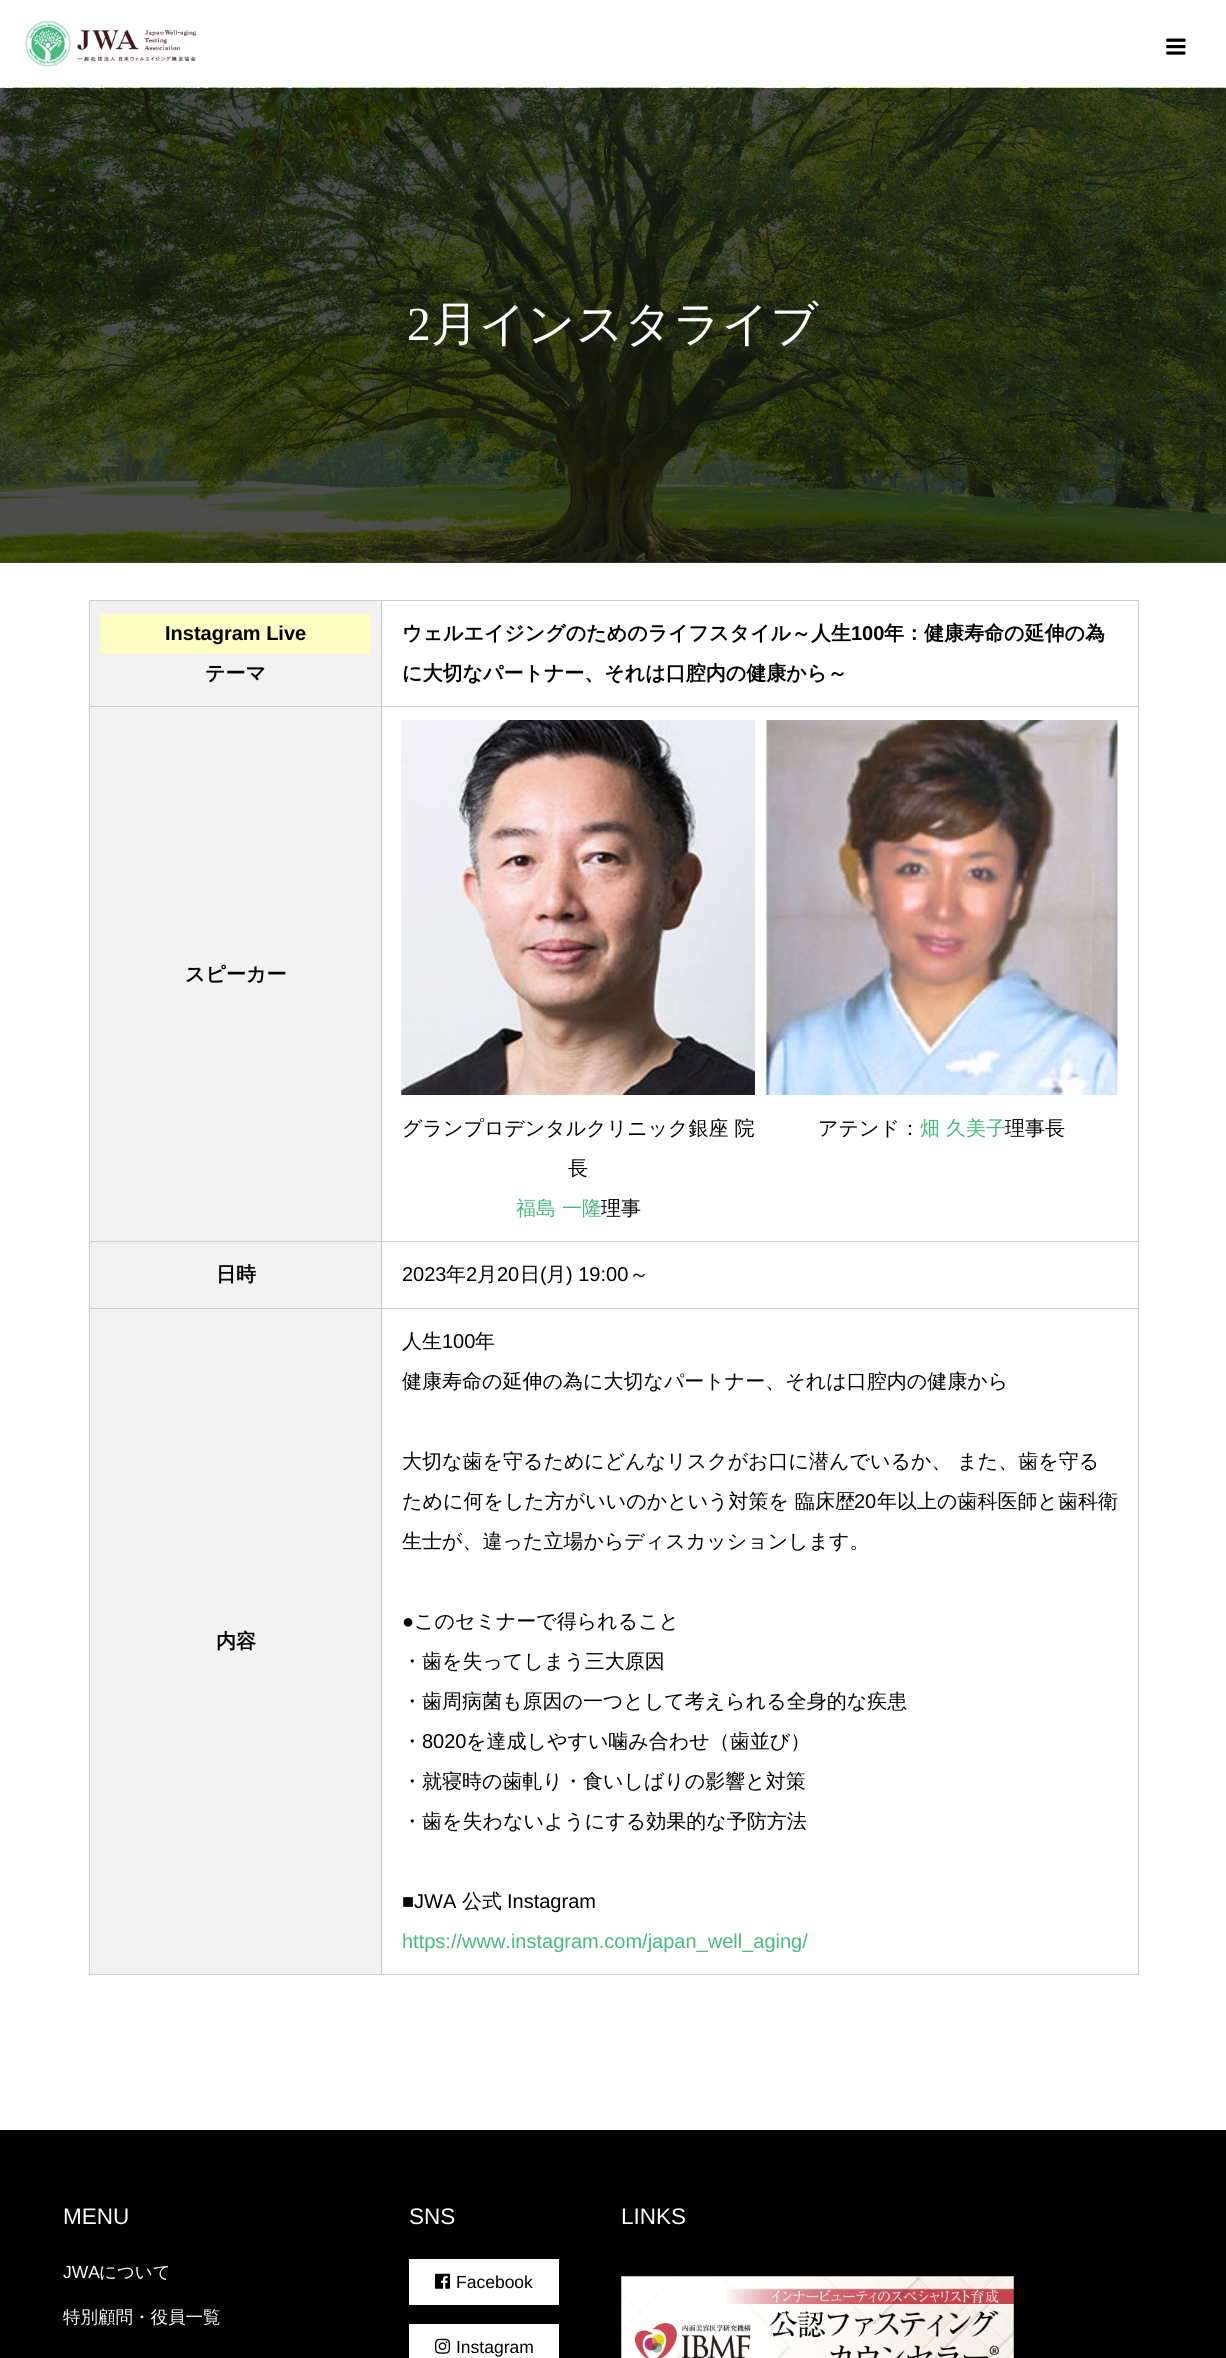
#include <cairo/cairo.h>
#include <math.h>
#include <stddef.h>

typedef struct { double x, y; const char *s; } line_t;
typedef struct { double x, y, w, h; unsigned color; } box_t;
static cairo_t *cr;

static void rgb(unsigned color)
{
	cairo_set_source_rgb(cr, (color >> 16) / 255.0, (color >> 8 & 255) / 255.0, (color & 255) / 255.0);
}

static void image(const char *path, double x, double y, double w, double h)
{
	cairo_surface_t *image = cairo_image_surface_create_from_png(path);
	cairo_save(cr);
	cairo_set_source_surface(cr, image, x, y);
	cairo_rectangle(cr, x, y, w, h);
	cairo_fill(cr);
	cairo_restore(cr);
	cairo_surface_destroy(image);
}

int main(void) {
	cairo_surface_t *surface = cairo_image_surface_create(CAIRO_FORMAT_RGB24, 1226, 2358);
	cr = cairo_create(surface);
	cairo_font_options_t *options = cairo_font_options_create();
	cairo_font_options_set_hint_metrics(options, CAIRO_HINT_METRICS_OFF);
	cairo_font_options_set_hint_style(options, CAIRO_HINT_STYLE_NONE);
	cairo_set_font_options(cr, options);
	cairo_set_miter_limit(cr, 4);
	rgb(0xffffff);
	cairo_paint(cr);
	rgb(0x4d4d4d);
	cairo_rectangle(cr, 0, 562, 1226, 1);
	cairo_fill(cr);
	image("img/1.png", 25, 20, 172, 47);
	image("img/2.png", 1166, 38, 20, 17);
	image("img/3.png", 0, 87, 1226, 476);
	{
		static const box_t items[] = {
			{90, 601, 293, 707, 0xf2f2f2},
			{381, 600, 758, 1, 0xcccccc},
			{381, 706, 758, 1, 0xcccccc},
			{381, 1241, 758, 1, 0xcccccc},
			{381, 1308, 758, 1, 0xcccccc},
			{90, 1309, 293, 665, 0xf2f2f2},
			{1138, 1308, 1, 667, 0xcccccc},
			{381, 1974, 758, 1, 0xcccccc},
			{381, 1308, 1, 667, 0xcccccc},
			{89, 1308, 294, 1, 0xcccccc},
			{381, 1241, 1, 68, 0xcccccc},
			{89, 1241, 294, 1, 0xcccccc},
			{381, 706, 1, 537, 0xcccccc},
			{89, 706, 294, 1, 0xcccccc},
			{381, 600, 1, 108, 0xcccccc},
			{89, 600, 294, 1, 0xcccccc},
			{89, 1974, 294, 1, 0xcccccc},
			{89, 1308, 1, 667, 0xcccccc},
			{89, 1241, 1, 68, 0xcccccc},
			{89, 706, 1, 537, 0xcccccc},
			{89, 600, 1, 108, 0xcccccc},
			{100, 614, 271, 40, 0xfffdc2},
			{1138, 1241, 1, 68, 0xcccccc},
			{1138, 706, 1, 537, 0xcccccc},
			{1138, 600, 1, 108, 0xcccccc},
		};
		for (size_t i = 0; i < sizeof items / sizeof *items; i++) {
			rgb(items[i].color);
			cairo_rectangle(cr, items[i].x, items[i].y, items[i].w, items[i].h);
			cairo_fill(cr);
		}
	}
	image("img/4.png", 401, 720, 354, 375);
	image("img/5.png", 765, 720, 353, 375);
	rgb(0x000000);
	cairo_rectangle(cr, 0, 2130, 1226, 228);
	cairo_fill(cr);
	rgb(0xffffff);
	cairo_rectangle(cr, 409, 2259, 150, 46);
	cairo_fill(cr);
	image("img/6.png", 435, 2273, 15, 16);
	cairo_rectangle(cr, 409, 2324, 150, 34);
	cairo_fill(cr);
	image("img/7.png", 435, 2338, 15, 16);
	image("img/8.png", 621, 2276, 393, 82);
	cairo_select_font_face(cr, "Liberation Serif", CAIRO_FONT_SLANT_NORMAL, CAIRO_FONT_WEIGHT_NORMAL);
	cairo_set_font_size(cr, 47.5);
	cairo_move_to(cr, 407, 340);
	cairo_show_text(cr, "2");
	cairo_select_font_face(cr, "WenQuanYi Zen Hei Medium", CAIRO_FONT_SLANT_NORMAL, CAIRO_FONT_WEIGHT_NORMAL);
	cairo_move_to(cr, 431, 340);
	cairo_show_text(cr, "月インスタライブ");
	cairo_select_font_face(cr, "Liberation Sans", CAIRO_FONT_SLANT_NORMAL, CAIRO_FONT_WEIGHT_BOLD);
	cairo_set_font_size(cr, 20);
	rgb(0x000000);
	cairo_move_to(cr, 165, 640);
	cairo_show_text(cr, "Instagram Live");
	cairo_select_font_face(cr, "WenQuanYi Zen Hei", CAIRO_FONT_SLANT_NORMAL, CAIRO_FONT_WEIGHT_BOLD);
	cairo_move_to(cr, 205, 680);
	cairo_show_text(cr, "テーマ");
	cairo_move_to(cr, 402, 640);
	cairo_show_text(cr, "ウェルエイジングのためのライフスタイル～人生");
	cairo_select_font_face(cr, "Liberation Sans", CAIRO_FONT_SLANT_NORMAL, CAIRO_FONT_WEIGHT_BOLD);
	cairo_move_to(cr, 851, 640);
	cairo_show_text(cr, "100");
	cairo_select_font_face(cr, "WenQuanYi Zen Hei", CAIRO_FONT_SLANT_NORMAL, CAIRO_FONT_WEIGHT_BOLD);
	{
		static const line_t items[] = {
			{884, 640, "年：健康寿命の延伸の為"},
			{402, 680, "に大切なパートナー、それは口腔内の健康から～"},
			{185, 981, "スピーカー"},
		};
		for (size_t i = 0; i < sizeof items / sizeof *items; i++) {
			cairo_move_to(cr, items[i].x, items[i].y);
			cairo_show_text(cr, items[i].s);
		}
	}
	cairo_select_font_face(cr, "WenQuanYi Zen Hei Medium", CAIRO_FONT_SLANT_NORMAL, CAIRO_FONT_WEIGHT_NORMAL);
	cairo_move_to(cr, 402, 1135);
	cairo_show_text(cr, "グランプロデンタルクリニック銀座 院");
	cairo_move_to(cr, 568, 1175);
	cairo_show_text(cr, "長");
	rgb(0x47ba80);
	cairo_move_to(cr, 516, 1215);
	cairo_show_text(cr, "福島 一隆");
	rgb(0x000000);
	cairo_move_to(cr, 601, 1215);
	cairo_show_text(cr, "理事");
	cairo_move_to(cr, 818, 1135);
	cairo_show_text(cr, "アテンド：");
	rgb(0x47ba80);
	cairo_move_to(cr, 920, 1135);
	cairo_show_text(cr, "畑 久美子");
	rgb(0x000000);
	cairo_move_to(cr, 1005, 1135);
	cairo_show_text(cr, "理事長");
	cairo_select_font_face(cr, "WenQuanYi Zen Hei", CAIRO_FONT_SLANT_NORMAL, CAIRO_FONT_WEIGHT_BOLD);
	cairo_move_to(cr, 216, 1281);
	cairo_show_text(cr, "日時");
	cairo_select_font_face(cr, "Liberation Sans", CAIRO_FONT_SLANT_NORMAL, CAIRO_FONT_WEIGHT_NORMAL);
	cairo_move_to(cr, 402, 1281);
	cairo_show_text(cr, "2023");
	cairo_select_font_face(cr, "WenQuanYi Zen Hei Medium", CAIRO_FONT_SLANT_NORMAL, CAIRO_FONT_WEIGHT_NORMAL);
	cairo_move_to(cr, 446, 1281);
	cairo_show_text(cr, "年");
	cairo_select_font_face(cr, "Liberation Sans", CAIRO_FONT_SLANT_NORMAL, CAIRO_FONT_WEIGHT_NORMAL);
	cairo_move_to(cr, 466, 1281);
	cairo_show_text(cr, "2");
	cairo_select_font_face(cr, "WenQuanYi Zen Hei Medium", CAIRO_FONT_SLANT_NORMAL, CAIRO_FONT_WEIGHT_NORMAL);
	cairo_move_to(cr, 477, 1281);
	cairo_show_text(cr, "月");
	cairo_select_font_face(cr, "Liberation Sans", CAIRO_FONT_SLANT_NORMAL, CAIRO_FONT_WEIGHT_NORMAL);
	cairo_move_to(cr, 497, 1281);
	cairo_show_text(cr, "20");
	cairo_select_font_face(cr, "WenQuanYi Zen Hei Medium", CAIRO_FONT_SLANT_NORMAL, CAIRO_FONT_WEIGHT_NORMAL);
	cairo_move_to(cr, 520, 1281);
	cairo_show_text(cr, "日");
	cairo_select_font_face(cr, "Liberation Sans", CAIRO_FONT_SLANT_NORMAL, CAIRO_FONT_WEIGHT_NORMAL);
	cairo_move_to(cr, 540, 1281);
	cairo_show_text(cr, "(");
	cairo_select_font_face(cr, "WenQuanYi Zen Hei Medium", CAIRO_FONT_SLANT_NORMAL, CAIRO_FONT_WEIGHT_NORMAL);
	cairo_move_to(cr, 546, 1281);
	cairo_show_text(cr, "月");
	cairo_select_font_face(cr, "Liberation Sans", CAIRO_FONT_SLANT_NORMAL, CAIRO_FONT_WEIGHT_NORMAL);
	cairo_move_to(cr, 566, 1281);
	cairo_show_text(cr, ") 19:00");
	cairo_select_font_face(cr, "WenQuanYi Zen Hei Medium", CAIRO_FONT_SLANT_NORMAL, CAIRO_FONT_WEIGHT_NORMAL);
	cairo_move_to(cr, 629, 1281);
	cairo_show_text(cr, "～");
	cairo_select_font_face(cr, "WenQuanYi Zen Hei", CAIRO_FONT_SLANT_NORMAL, CAIRO_FONT_WEIGHT_BOLD);
	cairo_move_to(cr, 216, 1648);
	cairo_show_text(cr, "内容");
	cairo_select_font_face(cr, "WenQuanYi Zen Hei Medium", CAIRO_FONT_SLANT_NORMAL, CAIRO_FONT_WEIGHT_NORMAL);
	cairo_move_to(cr, 402, 1348);
	cairo_show_text(cr, "人生");
	cairo_select_font_face(cr, "Liberation Sans", CAIRO_FONT_SLANT_NORMAL, CAIRO_FONT_WEIGHT_NORMAL);
	cairo_move_to(cr, 442, 1348);
	cairo_show_text(cr, "100");
	cairo_select_font_face(cr, "WenQuanYi Zen Hei Medium", CAIRO_FONT_SLANT_NORMAL, CAIRO_FONT_WEIGHT_NORMAL);
	{
		static const line_t items[] = {
			{475, 1348, "年"},
			{402, 1388, "健康寿命の延伸の為に大切なパートナー、それは口腔内の健康から"},
			{402, 1468, "大切な歯を守るためにどんなリスクがお口に潜んでいるか、 また、歯を守る"},
			{402, 1508, "ために何をした方がいいのかという対策を 臨床歴"},
		};
		for (size_t i = 0; i < sizeof items / sizeof *items; i++) {
			cairo_move_to(cr, items[i].x, items[i].y);
			cairo_show_text(cr, items[i].s);
		}
	}
	cairo_select_font_face(cr, "Liberation Sans", CAIRO_FONT_SLANT_NORMAL, CAIRO_FONT_WEIGHT_NORMAL);
	cairo_move_to(cr, 854, 1508);
	cairo_show_text(cr, "20");
	cairo_select_font_face(cr, "WenQuanYi Zen Hei Medium", CAIRO_FONT_SLANT_NORMAL, CAIRO_FONT_WEIGHT_NORMAL);
	cairo_move_to(cr, 877, 1508);
	cairo_show_text(cr, "年以上の歯科医師と歯科衛");
	cairo_move_to(cr, 402, 1548);
	cairo_show_text(cr, "生士が、違った立場からディスカッションします。");
	cairo_select_font_face(cr, "Liberation Sans", CAIRO_FONT_SLANT_NORMAL, CAIRO_FONT_WEIGHT_NORMAL);
	cairo_move_to(cr, 402, 1628);
	cairo_show_text(cr, "●");
	cairo_select_font_face(cr, "WenQuanYi Zen Hei Medium", CAIRO_FONT_SLANT_NORMAL, CAIRO_FONT_WEIGHT_NORMAL);
	{
		static const line_t items[] = {
			{414, 1628, "このセミナーで得られること"},
			{402, 1668, "・歯を失ってしまう三大原因"},
			{402, 1708, "・歯周病菌も原因の一つとして考えられる全身的な疾患"},
			{402, 1748, "・"},
		};
		for (size_t i = 0; i < sizeof items / sizeof *items; i++) {
			cairo_move_to(cr, items[i].x, items[i].y);
			cairo_show_text(cr, items[i].s);
		}
	}
	cairo_select_font_face(cr, "Liberation Sans", CAIRO_FONT_SLANT_NORMAL, CAIRO_FONT_WEIGHT_NORMAL);
	cairo_move_to(cr, 422, 1748);
	cairo_show_text(cr, "8020");
	cairo_select_font_face(cr, "WenQuanYi Zen Hei Medium", CAIRO_FONT_SLANT_NORMAL, CAIRO_FONT_WEIGHT_NORMAL);
	{
		static const line_t items[] = {
			{466, 1748, "を達成しやすい噛み合わせ（歯並び）"},
			{402, 1788, "・就寝時の歯軋り・食いしばりの影響と対策"},
			{402, 1828, "・歯を失わないようにする効果的な予防方法"},
		};
		for (size_t i = 0; i < sizeof items / sizeof *items; i++) {
			cairo_move_to(cr, items[i].x, items[i].y);
			cairo_show_text(cr, items[i].s);
		}
	}
	cairo_select_font_face(cr, "Liberation Sans", CAIRO_FONT_SLANT_NORMAL, CAIRO_FONT_WEIGHT_NORMAL);
	cairo_move_to(cr, 402, 1908);
	cairo_show_text(cr, "■JWA");
	cairo_select_font_face(cr, "WenQuanYi Zen Hei Medium", CAIRO_FONT_SLANT_NORMAL, CAIRO_FONT_WEIGHT_NORMAL);
	cairo_move_to(cr, 462, 1908);
	cairo_show_text(cr, "公式");
	cairo_select_font_face(cr, "Liberation Sans", CAIRO_FONT_SLANT_NORMAL, CAIRO_FONT_WEIGHT_NORMAL);
	cairo_move_to(cr, 507, 1908);
	cairo_show_text(cr, "Instagram");
	rgb(0x47ba80);
	cairo_move_to(cr, 402, 1948);
	cairo_show_text(cr, "https://www.instagram.com/japan_well_aging/");
	cairo_set_font_size(cr, 22.5);
	rgb(0xffffff);
	cairo_move_to(cr, 63, 2224);
	cairo_show_text(cr, "MENU");
	cairo_set_font_size(cr, 17.5);
	cairo_move_to(cr, 63, 2278);
	cairo_show_text(cr, "JWA");
	cairo_select_font_face(cr, "WenQuanYi Zen Hei Medium", CAIRO_FONT_SLANT_NORMAL, CAIRO_FONT_WEIGHT_NORMAL);
	cairo_move_to(cr, 99, 2278);
	cairo_show_text(cr, "について");
	cairo_move_to(cr, 63, 2323);
	cairo_show_text(cr, "特別顧問・役員一覧");
	cairo_select_font_face(cr, "Liberation Sans", CAIRO_FONT_SLANT_NORMAL, CAIRO_FONT_WEIGHT_NORMAL);
	cairo_set_font_size(cr, 22.5);
	cairo_move_to(cr, 409, 2224);
	cairo_show_text(cr, "SNS");
	cairo_set_font_size(cr, 17.5);
	rgb(0x000000);
	cairo_move_to(cr, 456, 2288);
	cairo_show_text(cr, "Facebook");
	cairo_move_to(cr, 456, 2353);
	cairo_show_text(cr, "Instagram");
	cairo_set_font_size(cr, 22.5);
	rgb(0xffffff);
	cairo_move_to(cr, 621, 2224);
	cairo_show_text(cr, "LINKS");
	cairo_surface_write_to_png(surface, "page.png");
	cairo_font_options_destroy(options);
	cairo_destroy(cr);
	cairo_surface_destroy(surface);
	return 0;
}
